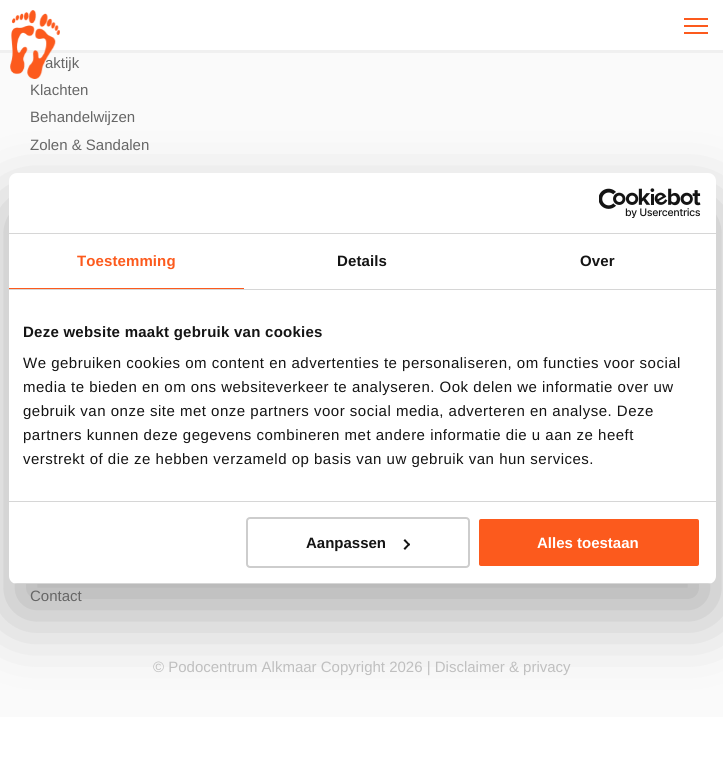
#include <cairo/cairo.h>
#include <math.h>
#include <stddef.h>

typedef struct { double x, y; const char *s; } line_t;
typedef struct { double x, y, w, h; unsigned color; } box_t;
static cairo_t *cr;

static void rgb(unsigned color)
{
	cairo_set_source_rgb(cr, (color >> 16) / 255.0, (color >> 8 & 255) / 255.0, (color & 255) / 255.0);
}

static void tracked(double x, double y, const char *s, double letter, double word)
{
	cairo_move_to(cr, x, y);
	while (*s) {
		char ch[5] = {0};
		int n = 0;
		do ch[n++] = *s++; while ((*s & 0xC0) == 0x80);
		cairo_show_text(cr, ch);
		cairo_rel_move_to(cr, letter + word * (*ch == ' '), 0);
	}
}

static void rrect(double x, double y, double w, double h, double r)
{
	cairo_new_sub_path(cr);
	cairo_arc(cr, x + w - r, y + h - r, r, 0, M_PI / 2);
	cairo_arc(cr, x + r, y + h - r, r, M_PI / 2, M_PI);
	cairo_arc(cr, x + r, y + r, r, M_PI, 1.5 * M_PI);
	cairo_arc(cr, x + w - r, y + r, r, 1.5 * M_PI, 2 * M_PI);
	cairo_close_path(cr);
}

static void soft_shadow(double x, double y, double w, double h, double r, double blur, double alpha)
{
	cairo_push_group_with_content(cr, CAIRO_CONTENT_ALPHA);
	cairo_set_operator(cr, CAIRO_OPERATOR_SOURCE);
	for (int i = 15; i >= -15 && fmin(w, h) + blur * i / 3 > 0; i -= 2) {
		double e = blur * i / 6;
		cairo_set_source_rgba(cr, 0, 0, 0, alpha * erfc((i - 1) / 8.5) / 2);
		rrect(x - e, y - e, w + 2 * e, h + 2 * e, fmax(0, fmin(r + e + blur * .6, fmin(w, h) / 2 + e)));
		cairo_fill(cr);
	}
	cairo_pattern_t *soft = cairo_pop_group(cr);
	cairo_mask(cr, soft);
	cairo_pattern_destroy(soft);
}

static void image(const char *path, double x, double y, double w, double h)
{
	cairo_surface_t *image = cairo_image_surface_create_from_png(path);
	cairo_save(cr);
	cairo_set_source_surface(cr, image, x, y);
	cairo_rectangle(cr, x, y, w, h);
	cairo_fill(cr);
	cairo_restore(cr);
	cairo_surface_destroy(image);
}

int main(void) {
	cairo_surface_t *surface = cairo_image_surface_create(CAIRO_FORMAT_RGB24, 723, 757);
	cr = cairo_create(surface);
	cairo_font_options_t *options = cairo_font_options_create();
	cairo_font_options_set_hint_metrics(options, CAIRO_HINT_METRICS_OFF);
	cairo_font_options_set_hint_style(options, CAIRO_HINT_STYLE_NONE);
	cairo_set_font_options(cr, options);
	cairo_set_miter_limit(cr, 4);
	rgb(0xffffff);
	cairo_paint(cr);
	{
		static const box_t items[] = {
			{0, 50, 723, 3, 0xf0f0f0},
			{684, 18, 24, 2, 0xfc5a1d},
			{684, 25, 24, 2, 0xfc5a1d},
			{684, 32, 24, 2, 0xfc5a1d},
			{0, 53, 723, 664, 0xfafafa},
		};
		for (size_t i = 0; i < sizeof items / sizeof *items; i++) {
			rgb(items[i].color);
			cairo_rectangle(cr, items[i].x, items[i].y, items[i].w, items[i].h);
			cairo_fill(cr);
		}
	}
	rgb(0x000000);
	soft_shadow(9, 205, 707, 411, 8, 34, 0.3);
	rgb(0xffffff);
	rrect(9, 173, 707, 411, 8);
	cairo_fill(cr);
	rgb(0xd6d6d6);
	cairo_rectangle(cr, 9, 233, 707, 1);
	cairo_fill(cr);
	image("img/2.png", 599, 188, 102, 30);
	{
		static const box_t items[] = {
			{9, 289, 707, 1, 0xd6d6d6},
			{9, 288, 235, 1, 0xfc5a1d},
			{9, 501, 707, 1, 0xd6d6d6},
		};
		for (size_t i = 0; i < sizeof items / sizeof *items; i++) {
			rgb(items[i].color);
			cairo_rectangle(cr, items[i].x, items[i].y, items[i].w, items[i].h);
			cairo_fill(cr);
		}
	}
	cairo_save(cr);
	rrect(9, 173, 707, 411, 8);
	cairo_clip(cr);
	cairo_rectangle(cr, 9, 583, 707, 1);
	cairo_fill(cr);
	cairo_restore(cr);
	rrect(247, 518, 222, 49, 3);
	rgb(0xcdcdcd);
	cairo_stroke(cr);
	rgb(0x141414);
	cairo_new_path(cr);
	cairo_move_to(cr, 405, 539);
	cairo_line_to(cr, 410, 544.5);
	cairo_line_to(cr, 409, 546);
	cairo_line_to(cr, 403.5, 540.5);
	cairo_close_path(cr);
	cairo_fill(cr);
	cairo_new_path(cr);
	cairo_move_to(cr, 409, 543);
	cairo_line_to(cr, 410, 544.5);
	cairo_line_to(cr, 405, 550);
	cairo_line_to(cr, 403.5, 548.5);
	cairo_close_path(cr);
	cairo_fill(cr);
	rgb(0xfc5a1d);
	rrect(478, 518, 222, 49, 3);
	cairo_fill_preserve(cr);
	rgb(0xffffff);
	cairo_stroke(cr);
	cairo_select_font_face(cr, "Liberation Sans", CAIRO_FONT_SLANT_NORMAL, CAIRO_FONT_WEIGHT_NORMAL);
	cairo_set_font_size(cr, 15);
	rgb(0x666666);
	cairo_move_to(cr, 45, 68);
	cairo_show_text(cr, "aktijk");
	image("img/1.png", 10, 10, 50, 69);
	{
		static const line_t items[] = {
			{30, 95, "Klachten"},
			{30, 122, "Behandelwijzen"},
			{30, 150, "Zolen & Sandalen"},
			{30, 601, "Contact"},
		};
		for (size_t i = 0; i < sizeof items / sizeof *items; i++) {
			cairo_move_to(cr, items[i].x, items[i].y);
			cairo_show_text(cr, items[i].s);
		}
	}
	rgb(0xbfbfbf);
	cairo_move_to(cr, 153, 672);
	cairo_show_text(cr, "© Podocentrum Alkmaar Copyright 2026 | Disclaimer & privacy");
	cairo_select_font_face(cr, "Liberation Sans", CAIRO_FONT_SLANT_NORMAL, CAIRO_FONT_WEIGHT_BOLD);
	rgb(0xfc5a1d);
	tracked(77, 266, "Toestemming", 0.1, 0);
	rgb(0x141414);
	tracked(337, 266, "Details", 0.1, 0);
	tracked(580, 266, "Over", 0.1, 0);
	tracked(23, 337, "Deze website maakt gebruik van cookies", 0.25, 0);
	cairo_select_font_face(cr, "Liberation Sans", CAIRO_FONT_SLANT_NORMAL, CAIRO_FONT_WEIGHT_NORMAL);
	{
		static const line_t items[] = {
			{23, 368, "We gebruiken cookies om content en advertenties te personaliseren, om functies voor social"},
			{23, 392, "media te bieden en om ons websiteverkeer te analyseren. Ook delen we informatie over uw"},
			{23, 416, "gebruik van onze site met onze partners voor social media, adverteren en analyse. Deze"},
			{23, 440, "partners kunnen deze gegevens combineren met andere informatie die u aan ze heeft"},
			{23, 464, "verstrekt of die ze hebben verzameld op basis van uw gebruik van hun services."},
		};
		for (size_t i = 0; i < sizeof items / sizeof *items; i++) {
			tracked(items[i].x, items[i].y, items[i].s, 0.5, 0);
		}
	}
	cairo_select_font_face(cr, "Liberation Sans", CAIRO_FONT_SLANT_NORMAL, CAIRO_FONT_WEIGHT_BOLD);
	cairo_move_to(cr, 306, 548);
	cairo_show_text(cr, "Aanpassen");
	rgb(0xffffff);
	cairo_move_to(cr, 537, 548);
	cairo_show_text(cr, "Alles toestaan");
	cairo_surface_write_to_png(surface, "page.png");
	cairo_font_options_destroy(options);
	cairo_destroy(cr);
	cairo_surface_destroy(surface);
	return 0;
}
